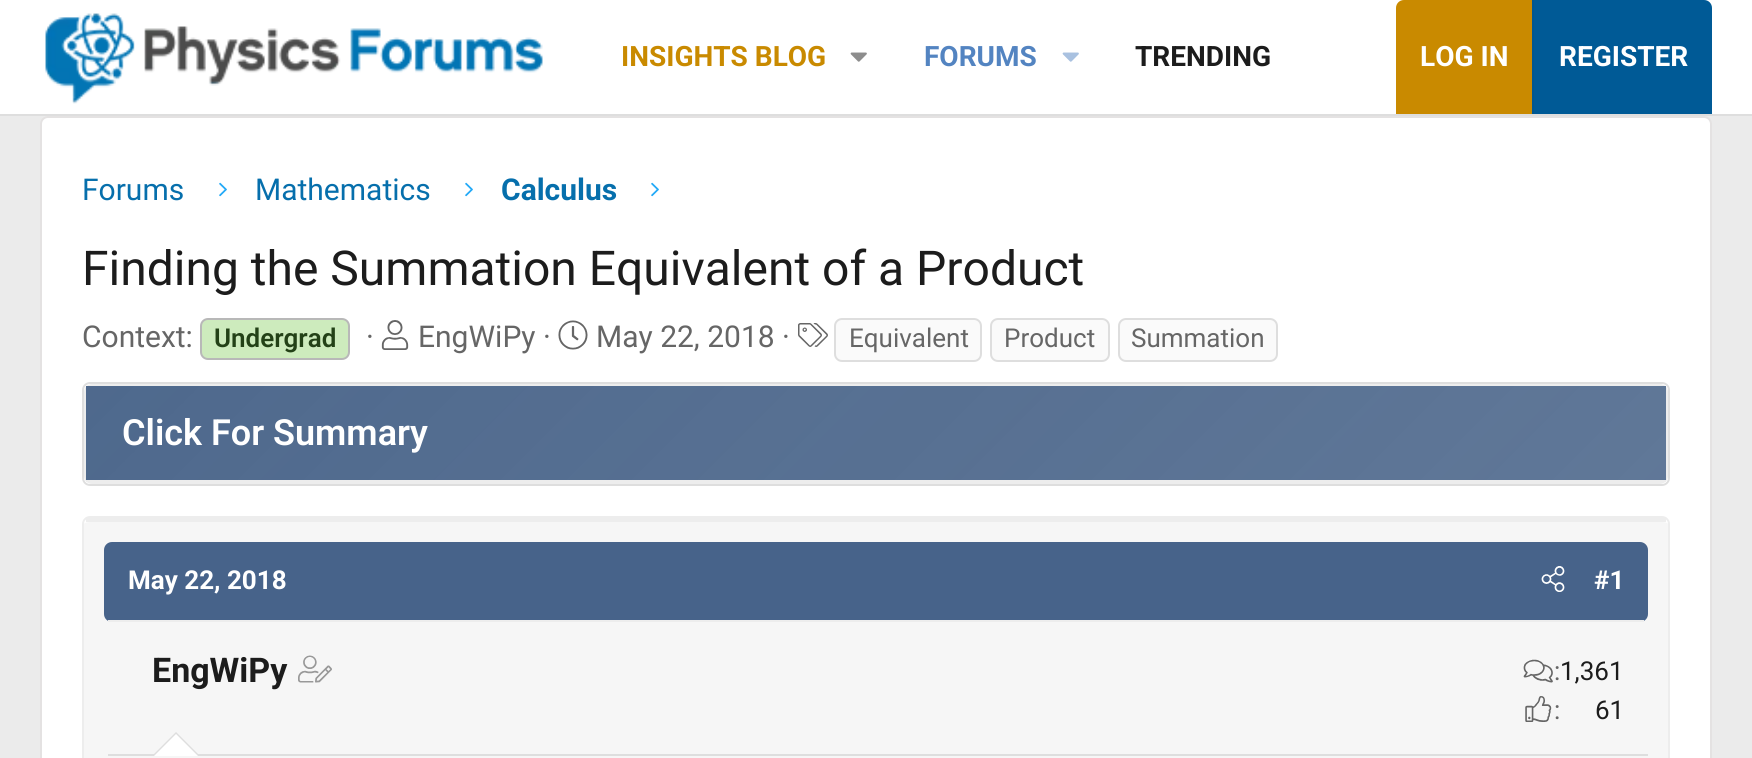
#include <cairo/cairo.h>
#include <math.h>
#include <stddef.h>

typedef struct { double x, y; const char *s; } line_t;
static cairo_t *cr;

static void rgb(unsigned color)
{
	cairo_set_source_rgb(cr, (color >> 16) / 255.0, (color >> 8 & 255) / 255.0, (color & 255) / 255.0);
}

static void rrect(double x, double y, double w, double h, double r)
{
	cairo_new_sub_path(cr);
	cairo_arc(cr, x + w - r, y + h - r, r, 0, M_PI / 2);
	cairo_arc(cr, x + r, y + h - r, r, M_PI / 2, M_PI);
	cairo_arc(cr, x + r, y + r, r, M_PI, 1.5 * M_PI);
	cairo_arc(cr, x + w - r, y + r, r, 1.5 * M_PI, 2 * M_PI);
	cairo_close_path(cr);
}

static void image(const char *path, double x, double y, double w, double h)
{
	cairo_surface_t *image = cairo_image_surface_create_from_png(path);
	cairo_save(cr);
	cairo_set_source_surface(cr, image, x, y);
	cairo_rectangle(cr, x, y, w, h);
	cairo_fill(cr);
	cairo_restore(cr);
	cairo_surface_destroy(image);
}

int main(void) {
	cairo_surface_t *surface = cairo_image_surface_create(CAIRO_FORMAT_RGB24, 1752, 758);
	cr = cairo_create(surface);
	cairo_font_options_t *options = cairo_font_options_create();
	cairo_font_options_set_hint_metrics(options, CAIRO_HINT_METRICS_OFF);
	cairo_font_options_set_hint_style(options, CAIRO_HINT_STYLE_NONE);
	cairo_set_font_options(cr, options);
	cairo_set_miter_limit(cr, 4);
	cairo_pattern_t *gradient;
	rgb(0xebebeb);
	cairo_paint(cr);
	rgb(0xffffff);
	cairo_rectangle(cr, 0, 0, 1752, 114);
	cairo_fill(cr);
	rgb(0xdedede);
	cairo_rectangle(cr, 0, 114, 1752, 2);
	cairo_fill(cr);
	image("img/1.png", 45, 13, 498, 91);
	image("img/2.png", 850, 52, 17, 10);
	image("img/3.png", 1062, 52, 17, 10);
	rgb(0xc98a00);
	cairo_new_path(cr);
	cairo_move_to(cr, 1404, 0);
	cairo_line_to(cr, 1532, 0);
	cairo_line_to(cr, 1532, 114);
	cairo_line_to(cr, 1396, 114);
	cairo_line_to(cr, 1396, 8);
	cairo_curve_to(cr, 1396, 3.5, 1399.5, 0, 1404, 0);
	cairo_close_path(cr);
	cairo_fill(cr);
	rgb(0x005a96);
	cairo_new_path(cr);
	cairo_move_to(cr, 1532, 0);
	cairo_line_to(cr, 1704, 0);
	cairo_curve_to(cr, 1708.5, 0, 1712, 3.5, 1712, 8);
	cairo_line_to(cr, 1712, 114);
	cairo_line_to(cr, 1532, 114);
	cairo_close_path(cr);
	cairo_fill(cr);
	rgb(0x015790);
	cairo_rectangle(cr, 1532, 0, 2, 114);
	cairo_fill(cr);
	rgb(0xffffff);
	rrect(41, 117, 1670, 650, 7);
	cairo_fill_preserve(cr);
	rgb(0xe4e2e2);
	cairo_stroke(cr);
	image("img/4.png", 219, 182, 8, 15);
	image("img/4.png", 465, 182, 8, 15);
	image("img/4.png", 651, 182, 8, 15);
	rgb(0xcdebbd);
	rrect(201, 319, 148, 40, 7);
	cairo_fill_preserve(cr);
	rgb(0xb8b8b8);
	cairo_stroke(cr);
	image("img/5.png", 381, 320, 28, 30);
	image("img/6.png", 558, 320, 30, 30);
	image("img/7.png", 798, 323, 30, 24);
	rgb(0xfafafa);
	rrect(835, 319, 146, 42, 7);
	cairo_fill_preserve(cr);
	rgb(0xdedede);
	cairo_stroke(cr);
	rgb(0xfafafa);
	rrect(991, 319, 118, 42, 7);
	cairo_fill_preserve(cr);
	rgb(0xdedede);
	cairo_stroke(cr);
	rgb(0xfafafa);
	rrect(1119, 319, 158, 42, 7);
	cairo_fill_preserve(cr);
	rgb(0xdedede);
	cairo_stroke(cr);
	rrect(83, 383, 1586, 102, 7);
	cairo_stroke(cr);
	rgb(0xfafafa);
	rrect(85, 385, 1582, 98, 7);
	cairo_fill_preserve(cr);
	rgb(0xededed);
	cairo_stroke(cr);
	gradient = cairo_pattern_create_linear(457, 14, 1295, 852);
	cairo_pattern_add_color_stop_rgba(gradient, 0, 0.271, 0.38, 0.529, 0.95);
	cairo_pattern_add_color_stop_rgba(gradient, 1, 0.271, 0.38, 0.529, 0.85);
	cairo_set_source(cr, gradient);
	cairo_pattern_destroy(gradient);
	cairo_rectangle(cr, 86, 386, 1580, 94);
	cairo_fill(cr);
	rgb(0xededed);
	cairo_rectangle(cr, 86, 480, 1580, 2);
	cairo_fill(cr);
	rgb(0xf6f6f6);
	cairo_new_path(cr);
	cairo_move_to(cr, 90, 522);
	cairo_line_to(cr, 1662, 522);
	cairo_curve_to(cr, 1665, 522, 1668, 523, 1668, 524);
	cairo_line_to(cr, 1668, 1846);
	cairo_curve_to(cr, 1668, 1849, 1665, 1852, 1662, 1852);
	cairo_line_to(cr, 90, 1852);
	cairo_curve_to(cr, 87, 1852, 84, 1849, 84, 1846);
	cairo_line_to(cr, 84, 524);
	cairo_curve_to(cr, 84, 523, 87, 522, 90, 522);
	cairo_close_path(cr);
	cairo_fill(cr);
	rrect(83, 517, 1586, 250, 7);
	rgb(0xededed);
	cairo_stroke(cr);
	cairo_rectangle(cr, 86, 518, 1580, 4);
	cairo_fill(cr);
	rgb(0x47638a);
	rrect(104, 542, 1544, 80, 8);
	cairo_fill(cr);
	rgb(0xededed);
	cairo_rectangle(cr, 108, 620, 1536, 2);
	cairo_fill(cr);
	image("img/8.png", 1541, 566, 24, 26);
	rgb(0xdedede);
	cairo_rectangle(cr, 108, 754, 1540, 2);
	cairo_fill(cr);
	image("img/9.png", 298, 655, 34, 28);
	image("img/10.png", 1523, 659, 30, 24);
	image("img/11.png", 1525, 696, 27, 26);
	cairo_new_path(cr);
	cairo_move_to(cr, 200, 756);
	cairo_line_to(cr, 152, 756);
	cairo_line_to(cr, 176, 732);
	cairo_close_path(cr);
	cairo_fill(cr);
	rgb(0xffffff);
	cairo_new_path(cr);
	cairo_move_to(cr, 198, 756);
	cairo_line_to(cr, 154, 756);
	cairo_line_to(cr, 176, 734);
	cairo_close_path(cr);
	cairo_fill(cr);
	cairo_select_font_face(cr, "Roboto", CAIRO_FONT_SLANT_NORMAL, CAIRO_FONT_WEIGHT_BOLD);
	cairo_set_font_size(cr, 28);
	rgb(0xc98a00);
	cairo_move_to(cr, 621, 66);
	cairo_show_text(cr, "INSIGHTS BLOG");
	rgb(0x5384c1);
	cairo_move_to(cr, 924, 66);
	cairo_show_text(cr, "FORUMS");
	rgb(0x1c1c1c);
	cairo_move_to(cr, 1135, 66);
	cairo_show_text(cr, "TRENDING");
	rgb(0xffffff);
	cairo_move_to(cr, 1420, 66);
	cairo_show_text(cr, "LOG IN");
	cairo_move_to(cr, 1559, 66);
	cairo_show_text(cr, "REGISTER");
	cairo_select_font_face(cr, "Roboto", CAIRO_FONT_SLANT_NORMAL, CAIRO_FONT_WEIGHT_NORMAL);
	cairo_set_font_size(cr, 30);
	rgb(0x066fac);
	cairo_move_to(cr, 82, 200);
	cairo_show_text(cr, "Forums");
	cairo_move_to(cr, 255, 200);
	cairo_show_text(cr, "Mathematics");
	cairo_select_font_face(cr, "Roboto", CAIRO_FONT_SLANT_NORMAL, CAIRO_FONT_WEIGHT_BOLD);
	cairo_move_to(cr, 501, 200);
	cairo_show_text(cr, "Calculus");
	cairo_select_font_face(cr, "Roboto", CAIRO_FONT_SLANT_NORMAL, CAIRO_FONT_WEIGHT_NORMAL);
	cairo_set_font_size(cr, 48);
	rgb(0x1c1c1c);
	cairo_move_to(cr, 82, 285);
	cairo_show_text(cr, "Finding the Summation Equivalent of a Product");
	cairo_set_font_size(cr, 30);
	rgb(0x666666);
	cairo_move_to(cr, 82, 347);
	cairo_show_text(cr, "Context:");
	cairo_select_font_face(cr, "Roboto SemiBold", CAIRO_FONT_SLANT_NORMAL, CAIRO_FONT_WEIGHT_NORMAL);
	cairo_set_font_size(cr, 26);
	rgb(0x234117);
	cairo_move_to(cr, 214, 347);
	cairo_show_text(cr, "Undergrad");
	cairo_select_font_face(cr, "Roboto", CAIRO_FONT_SLANT_NORMAL, CAIRO_FONT_WEIGHT_NORMAL);
	cairo_set_font_size(cr, 30);
	rgb(0x666666);
	{
		static const line_t items[] = {
			{366, 347, "·"},
			{418, 347, "EngWiPy ·"},
			{596, 347, "May 22, 2018 ·"},
		};
		for (size_t i = 0; i < sizeof items / sizeof *items; i++) {
			cairo_move_to(cr, items[i].x, items[i].y);
			cairo_show_text(cr, items[i].s);
		}
	}
	cairo_set_font_size(cr, 26);
	{
		static const line_t items[] = {
			{849, 347, "Equivalent"},
			{1004, 347, "Product"},
			{1131, 347, "Summation"},
		};
		for (size_t i = 0; i < sizeof items / sizeof *items; i++) {
			cairo_move_to(cr, items[i].x, items[i].y);
			cairo_show_text(cr, items[i].s);
		}
	}
	cairo_select_font_face(cr, "Roboto SemiBold", CAIRO_FONT_SLANT_NORMAL, CAIRO_FONT_WEIGHT_NORMAL);
	cairo_set_font_size(cr, 36);
	rgb(0xffffff);
	cairo_move_to(cr, 122, 445);
	cairo_show_text(cr, "Click For Summary");
	cairo_select_font_face(cr, "Roboto", CAIRO_FONT_SLANT_NORMAL, CAIRO_FONT_WEIGHT_BOLD);
	cairo_set_font_size(cr, 26);
	cairo_move_to(cr, 128, 589);
	cairo_show_text(cr, "May 22, 2018");
	cairo_move_to(cr, 1594, 589);
	cairo_show_text(cr, "#1");
	cairo_set_font_size(cr, 34);
	rgb(0x1c1c1c);
	cairo_move_to(cr, 152, 682);
	cairo_show_text(cr, "EngWiPy");
	cairo_select_font_face(cr, "Roboto", CAIRO_FONT_SLANT_NORMAL, CAIRO_FONT_WEIGHT_NORMAL);
	cairo_set_font_size(cr, 26);
	rgb(0x666666);
	cairo_move_to(cr, 1554, 680);
	cairo_show_text(cr, ":");
	rgb(0x1c1c1c);
	cairo_move_to(cr, 1560, 680);
	cairo_show_text(cr, "1,361");
	rgb(0x666666);
	cairo_move_to(cr, 1554, 719);
	cairo_show_text(cr, ":");
	rgb(0x1c1c1c);
	cairo_move_to(cr, 1595, 719);
	cairo_show_text(cr, "61");
	cairo_surface_write_to_png(surface, "page.png");
	cairo_font_options_destroy(options);
	cairo_destroy(cr);
	cairo_surface_destroy(surface);
	return 0;
}
